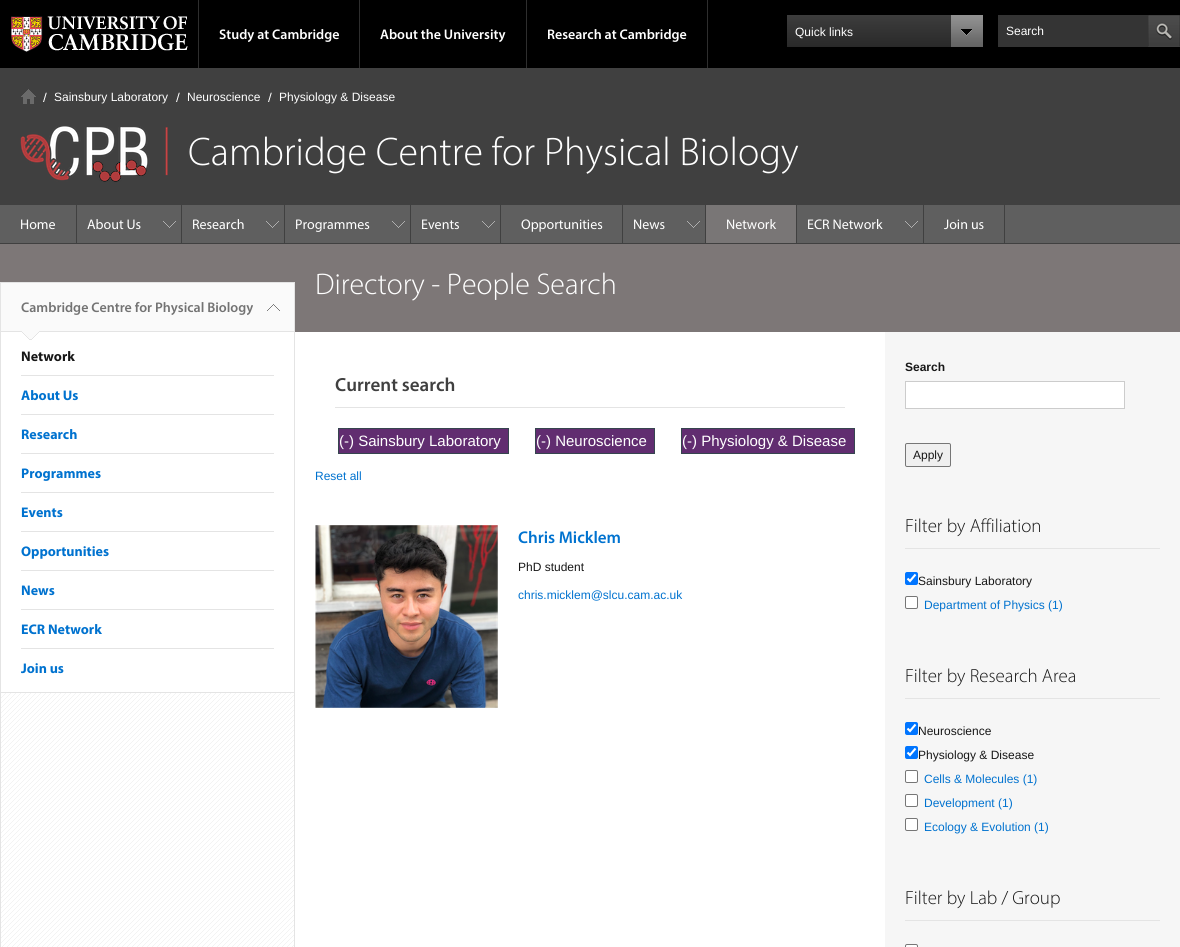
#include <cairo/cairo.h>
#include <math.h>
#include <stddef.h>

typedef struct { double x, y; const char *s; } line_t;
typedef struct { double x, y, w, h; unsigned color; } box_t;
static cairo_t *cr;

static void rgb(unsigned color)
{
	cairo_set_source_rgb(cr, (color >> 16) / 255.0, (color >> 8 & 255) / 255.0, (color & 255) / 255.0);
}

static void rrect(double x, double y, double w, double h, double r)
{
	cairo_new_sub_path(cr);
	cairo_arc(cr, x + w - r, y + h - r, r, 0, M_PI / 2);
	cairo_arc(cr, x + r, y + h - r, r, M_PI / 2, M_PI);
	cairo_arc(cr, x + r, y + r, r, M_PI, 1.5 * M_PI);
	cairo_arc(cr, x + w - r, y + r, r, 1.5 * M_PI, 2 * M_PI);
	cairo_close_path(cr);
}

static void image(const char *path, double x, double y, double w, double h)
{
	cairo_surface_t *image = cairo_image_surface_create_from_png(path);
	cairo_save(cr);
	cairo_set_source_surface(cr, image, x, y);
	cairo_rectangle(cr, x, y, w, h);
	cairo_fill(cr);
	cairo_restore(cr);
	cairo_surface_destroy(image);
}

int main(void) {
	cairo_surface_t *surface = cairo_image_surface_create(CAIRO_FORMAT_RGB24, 1180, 947);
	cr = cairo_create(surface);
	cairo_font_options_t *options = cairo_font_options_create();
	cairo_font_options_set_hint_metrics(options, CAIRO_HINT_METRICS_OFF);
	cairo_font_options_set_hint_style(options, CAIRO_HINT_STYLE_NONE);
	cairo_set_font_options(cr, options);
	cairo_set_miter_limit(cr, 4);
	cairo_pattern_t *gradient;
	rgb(0x000000);
	cairo_paint(cr);
	image("img/1.png", 11, 16, 177, 36);
	{
		static const box_t items[] = {
			{198, 0, 1, 68, 0x2e2e2e},
			{359, 0, 1, 68, 0x2e2e2e},
			{526, 0, 1, 68, 0x2e2e2e},
			{707, 0, 1, 68, 0x2e2e2e},
		};
		for (size_t i = 0; i < sizeof items / sizeof *items; i++) {
			rgb(items[i].color);
			cairo_rectangle(cr, items[i].x, items[i].y, items[i].w, items[i].h);
			cairo_fill(cr);
		}
	}
	gradient = cairo_pattern_create_linear(885, 15, 885, 47);
	cairo_pattern_add_color_stop_rgba(gradient, 0, 0.239, 0.239, 0.239, 1);
	cairo_pattern_add_color_stop_rgba(gradient, 1, 0.161, 0.161, 0.161, 1);
	cairo_set_source(cr, gradient);
	cairo_pattern_destroy(gradient);
	cairo_rectangle(cr, 787, 15, 164, 32);
	cairo_fill(cr);
	image("img/2.png", 951, 15, 32, 32);
	rgb(0x343434);
	cairo_rectangle(cr, 998, 15, 150, 32);
	cairo_fill(cr);
	image("img/3.png", 1148, 15, 32, 32);
	rgb(0x404040);
	cairo_rectangle(cr, 0, 68, 1180, 136);
	cairo_fill(cr);
	image("img/4.png", 21, 89, 15, 15);
	image("img/5.png", 43, 92, 4, 10);
	image("img/5.png", 176, 92, 4, 10);
	image("img/5.png", 268, 92, 4, 10);
	image("img/6.png", 20, 126, 148, 56);
	{
		static const box_t items[] = {
			{1005, 205, 175, 38, 0x5f5f5f},
			{924, 204, 256, 1, 0x404040},
			{1005, 243, 175, 1, 0x404040},
			{0, 205, 76, 38, 0x5f5f5f},
			{0, 204, 411, 1, 0x404040},
			{76, 204, 1, 40, 0x404040},
			{0, 243, 77, 1, 0x404040},
			{77, 205, 104, 38, 0x5f5f5f},
		};
		for (size_t i = 0; i < sizeof items / sizeof *items; i++) {
			rgb(items[i].color);
			cairo_rectangle(cr, items[i].x, items[i].y, items[i].w, items[i].h);
			cairo_fill(cr);
		}
	}
	image("img/7.png", 163, 221, 13, 7);
	{
		static const box_t items[] = {
			{181, 204, 1, 40, 0x404040},
			{77, 243, 105, 1, 0x404040},
			{182, 205, 102, 38, 0x5f5f5f},
		};
		for (size_t i = 0; i < sizeof items / sizeof *items; i++) {
			rgb(items[i].color);
			cairo_rectangle(cr, items[i].x, items[i].y, items[i].w, items[i].h);
			cairo_fill(cr);
		}
	}
	image("img/7.png", 266, 221, 13, 7);
	{
		static const box_t items[] = {
			{284, 204, 1, 40, 0x404040},
			{182, 243, 103, 1, 0x404040},
			{285, 205, 125, 38, 0x5f5f5f},
		};
		for (size_t i = 0; i < sizeof items / sizeof *items; i++) {
			rgb(items[i].color);
			cairo_rectangle(cr, items[i].x, items[i].y, items[i].w, items[i].h);
			cairo_fill(cr);
		}
	}
	image("img/7.png", 392, 221, 13, 7);
	{
		static const box_t items[] = {
			{410, 204, 1, 40, 0x404040},
			{285, 243, 126, 1, 0x404040},
			{411, 205, 89, 38, 0x5f5f5f},
		};
		for (size_t i = 0; i < sizeof items / sizeof *items; i++) {
			rgb(items[i].color);
			cairo_rectangle(cr, items[i].x, items[i].y, items[i].w, items[i].h);
			cairo_fill(cr);
		}
	}
	image("img/7.png", 482, 221, 13, 7);
	{
		static const box_t items[] = {
			{411, 204, 212, 1, 0x404040},
			{500, 204, 1, 40, 0x404040},
			{411, 243, 90, 1, 0x404040},
			{501, 205, 121, 38, 0x5f5f5f},
			{622, 204, 1, 40, 0x404040},
			{501, 243, 122, 1, 0x404040},
			{623, 205, 82, 38, 0x5f5f5f},
		};
		for (size_t i = 0; i < sizeof items / sizeof *items; i++) {
			rgb(items[i].color);
			cairo_rectangle(cr, items[i].x, items[i].y, items[i].w, items[i].h);
			cairo_fill(cr);
		}
	}
	image("img/7.png", 687, 221, 13, 7);
	{
		static const box_t items[] = {
			{623, 204, 301, 1, 0x404040},
			{705, 204, 1, 40, 0x404040},
			{623, 243, 83, 1, 0x404040},
			{706, 205, 90, 38, 0x797676},
			{796, 204, 1, 40, 0x404040},
			{706, 243, 91, 1, 0x404040},
			{797, 205, 126, 38, 0x5f5f5f},
		};
		for (size_t i = 0; i < sizeof items / sizeof *items; i++) {
			rgb(items[i].color);
			cairo_rectangle(cr, items[i].x, items[i].y, items[i].w, items[i].h);
			cairo_fill(cr);
		}
	}
	image("img/7.png", 905, 221, 13, 7);
	{
		static const box_t items[] = {
			{923, 204, 1, 40, 0x404040},
			{797, 243, 127, 1, 0x404040},
			{924, 205, 80, 38, 0x5f5f5f},
			{1004, 204, 1, 40, 0x404040},
			{924, 243, 81, 1, 0x404040},
			{0, 244, 1180, 88, 0x7d7777},
			{1, 332, 884, 615, 0xffffff},
		};
		for (size_t i = 0; i < sizeof items / sizeof *items; i++) {
			rgb(items[i].color);
			cairo_rectangle(cr, items[i].x, items[i].y, items[i].w, items[i].h);
			cairo_fill(cr);
		}
	}
	image("img/8.png", 1, 693, 293, 254);
	{
		static const box_t items[] = {
			{0, 282, 295, 1, 0xe4e4e4},
			{294, 282, 1, 665, 0xe4e4e4},
			{0, 282, 1, 665, 0xe4e4e4},
			{1, 692, 293, 1, 0xe4e4e4},
			{1, 283, 293, 48, 0xfafafa},
		};
		for (size_t i = 0; i < sizeof items / sizeof *items; i++) {
			rgb(items[i].color);
			cairo_rectangle(cr, items[i].x, items[i].y, items[i].w, items[i].h);
			cairo_fill(cr);
		}
	}
	image("img/9.png", 267, 304, 13, 7);
	rgb(0xe4e4e4);
	cairo_rectangle(cr, 1, 331, 293, 1);
	cairo_fill(cr);
	image("img/10.png", 22, 331, 17, 9);
	{
		static const box_t items[] = {
			{21, 375, 253, 1, 0xe4e4e4},
			{21, 414, 253, 1, 0xe4e4e4},
			{21, 453, 253, 1, 0xe4e4e4},
			{21, 492, 253, 1, 0xe4e4e4},
			{21, 531, 253, 1, 0xe4e4e4},
			{21, 570, 253, 1, 0xe4e4e4},
			{21, 609, 253, 1, 0xe4e4e4},
			{21, 648, 253, 1, 0xe4e4e4},
			{335, 407, 510, 1, 0xe4e4e4},
		};
		for (size_t i = 0; i < sizeof items / sizeof *items; i++) {
			rgb(items[i].color);
			cairo_rectangle(cr, items[i].x, items[i].y, items[i].w, items[i].h);
			cairo_fill(cr);
		}
	}
	rgb(0x612d70);
	cairo_rectangle(cr, 338.5, 428.5, 170, 25);
	cairo_fill_preserve(cr);
	rgb(0x36454f);
	cairo_set_line_width(cr, 1);
	cairo_stroke(cr);
	rgb(0x612d70);
	cairo_rectangle(cr, 535.5, 428.5, 119, 25);
	cairo_fill_preserve(cr);
	rgb(0x36454f);
	cairo_stroke(cr);
	rgb(0x612d70);
	cairo_rectangle(cr, 681.5, 428.5, 173, 25);
	cairo_fill_preserve(cr);
	rgb(0x36454f);
	cairo_stroke(cr);
	image("img/11.png", 315, 525, 183, 183);
	rgb(0xf6f6f6);
	cairo_rectangle(cr, 885, 332, 295, 615);
	cairo_fill(cr);
	rgb(0xffffff);
	cairo_rectangle(cr, 905.5, 381.5, 219, 27);
	cairo_fill_preserve(cr);
	rgb(0xcccccc);
	cairo_stroke(cr);
	rgb(0xefefef);
	rrect(905.5, 443.5, 45, 23, 1.5);
	cairo_fill_preserve(cr);
	rgb(0x767676);
	cairo_stroke(cr);
	rgb(0xe4e4e4);
	cairo_rectangle(cr, 905, 548, 255, 1);
	cairo_fill(cr);
	rgb(0x0075ff);
	rrect(905, 572, 13, 13, 2);
	cairo_fill(cr);
	cairo_new_path(cr);
	cairo_move_to(cr, 907.5, 578.5);
	cairo_line_to(cr, 910, 581);
	cairo_line_to(cr, 915.5, 574.5);
	rgb(0xffffff);
	cairo_set_line_width(cr, 2.1);
	cairo_stroke(cr);
	rrect(905.5, 596.5, 12, 12, 1.5);
	cairo_fill_preserve(cr);
	rgb(0x767676);
	cairo_set_line_width(cr, 1);
	cairo_stroke(cr);
	rgb(0xe4e4e4);
	cairo_rectangle(cr, 905, 698, 255, 1);
	cairo_fill(cr);
	rgb(0x0075ff);
	rrect(905, 722, 13, 13, 2);
	cairo_fill(cr);
	cairo_new_path(cr);
	cairo_move_to(cr, 907.5, 728.5);
	cairo_line_to(cr, 910, 731);
	cairo_line_to(cr, 915.5, 724.5);
	rgb(0xffffff);
	cairo_set_line_width(cr, 2.1);
	cairo_stroke(cr);
	rgb(0x0075ff);
	rrect(905, 746, 13, 13, 2);
	cairo_fill(cr);
	cairo_new_path(cr);
	cairo_move_to(cr, 907.5, 752.5);
	cairo_line_to(cr, 910, 755);
	cairo_line_to(cr, 915.5, 748.5);
	rgb(0xffffff);
	cairo_stroke(cr);
	rrect(905.5, 770.5, 12, 12, 1.5);
	cairo_fill_preserve(cr);
	rgb(0x767676);
	cairo_set_line_width(cr, 1);
	cairo_stroke(cr);
	rgb(0xffffff);
	rrect(905.5, 794.5, 12, 12, 1.5);
	cairo_fill_preserve(cr);
	rgb(0x767676);
	cairo_stroke(cr);
	rgb(0xffffff);
	rrect(905.5, 818.5, 12, 12, 1.5);
	cairo_fill_preserve(cr);
	rgb(0x767676);
	cairo_stroke(cr);
	rgb(0xe4e4e4);
	cairo_rectangle(cr, 905, 920, 255, 1);
	cairo_fill(cr);
	rgb(0xffffff);
	rrect(905.5, 944.5, 12, 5, 1.5);
	cairo_fill_preserve(cr);
	rgb(0x767676);
	cairo_stroke(cr);
	cairo_select_font_face(cr, "Myriad SemiBold", CAIRO_FONT_SLANT_NORMAL, CAIRO_FONT_WEIGHT_NORMAL);
	cairo_set_font_size(cr, 14);
	rgb(0xffffff);
	{
		static const line_t items[] = {
			{219, 39, "Study at Cambridge"},
			{380, 39, "About the University"},
			{547, 39, "Research at Cambridge"},
		};
		for (size_t i = 0; i < sizeof items / sizeof *items; i++) {
			cairo_move_to(cr, items[i].x, items[i].y);
			cairo_show_text(cr, items[i].s);
		}
	}
	cairo_select_font_face(cr, "Liberation Sans", CAIRO_FONT_SLANT_NORMAL, CAIRO_FONT_WEIGHT_NORMAL);
	cairo_set_font_size(cr, 12);
	{
		static const line_t items[] = {
			{795, 36, "Quick links"},
			{1006, 35, "Search"},
			{54, 101, "Sainsbury Laboratory"},
			{187, 101, "Neuroscience"},
			{279, 101, "Physiology & Disease"},
		};
		for (size_t i = 0; i < sizeof items / sizeof *items; i++) {
			cairo_move_to(cr, items[i].x, items[i].y);
			cairo_show_text(cr, items[i].s);
		}
	}
	cairo_select_font_face(cr, "Myriad Light", CAIRO_FONT_SLANT_NORMAL, CAIRO_FONT_WEIGHT_NORMAL);
	cairo_set_font_size(cr, 40);
	cairo_move_to(cr, 188, 165);
	cairo_show_text(cr, "Cambridge Centre for Physical Biology");
	cairo_select_font_face(cr, "Myriad", CAIRO_FONT_SLANT_NORMAL, CAIRO_FONT_WEIGHT_NORMAL);
	cairo_set_font_size(cr, 14);
	{
		static const line_t items[] = {
			{20, 229, "Home"},
			{87, 229, "About Us"},
			{192, 229, "Research"},
			{295, 229, "Programmes"},
			{421, 229, "Events"},
			{521, 229, "Opportunities"},
			{633, 229, "News"},
			{726, 229, "Network"},
			{807, 229, "ECR Network"},
			{944, 229, "Join us"},
		};
		for (size_t i = 0; i < sizeof items / sizeof *items; i++) {
			cairo_move_to(cr, items[i].x, items[i].y);
			cairo_show_text(cr, items[i].s);
		}
	}
	cairo_select_font_face(cr, "Myriad Light", CAIRO_FONT_SLANT_NORMAL, CAIRO_FONT_WEIGHT_NORMAL);
	cairo_set_font_size(cr, 30);
	cairo_move_to(cr, 315, 294);
	cairo_show_text(cr, "Directory - People Search");
	cairo_select_font_face(cr, "Myriad SemiBold", CAIRO_FONT_SLANT_NORMAL, CAIRO_FONT_WEIGHT_NORMAL);
	cairo_set_font_size(cr, 14);
	rgb(0x737373);
	cairo_move_to(cr, 21, 312);
	cairo_show_text(cr, "Cambridge Centre for Physical Biology");
	cairo_select_font_face(cr, "Myriad", CAIRO_FONT_SLANT_NORMAL, CAIRO_FONT_WEIGHT_BOLD);
	rgb(0x171717);
	cairo_move_to(cr, 21, 361);
	cairo_show_text(cr, "Network");
	rgb(0x0072cf);
	{
		static const line_t items[] = {
			{21, 400, "About Us"},
			{21, 439, "Research"},
			{21, 478, "Programmes"},
			{21, 517, "Events"},
			{21, 556, "Opportunities"},
			{21, 595, "News"},
			{21, 634, "ECR Network"},
			{21, 673, "Join us"},
		};
		for (size_t i = 0; i < sizeof items / sizeof *items; i++) {
			cairo_move_to(cr, items[i].x, items[i].y);
			cairo_show_text(cr, items[i].s);
		}
	}
	cairo_select_font_face(cr, "Myriad SemiBold", CAIRO_FONT_SLANT_NORMAL, CAIRO_FONT_WEIGHT_NORMAL);
	cairo_set_font_size(cr, 19);
	rgb(0x404040);
	cairo_move_to(cr, 335, 391);
	cairo_show_text(cr, "Current search");
	cairo_select_font_face(cr, "Liberation Sans", CAIRO_FONT_SLANT_NORMAL, CAIRO_FONT_WEIGHT_NORMAL);
	cairo_set_font_size(cr, 15);
	rgb(0xffffff);
	{
		static const line_t items[] = {
			{339, 446, "(-) Sainsbury Laboratory"},
			{536, 446, "(-) Neuroscience"},
			{682, 446, "(-) Physiology & Disease"},
		};
		for (size_t i = 0; i < sizeof items / sizeof *items; i++) {
			cairo_move_to(cr, items[i].x, items[i].y);
			cairo_show_text(cr, items[i].s);
		}
	}
	cairo_set_font_size(cr, 12);
	rgb(0x0072cf);
	cairo_move_to(cr, 315, 480);
	cairo_show_text(cr, "Reset all");
	cairo_select_font_face(cr, "Myriad SemiBold", CAIRO_FONT_SLANT_NORMAL, CAIRO_FONT_WEIGHT_NORMAL);
	cairo_set_font_size(cr, 17);
	cairo_move_to(cr, 518, 543);
	cairo_show_text(cr, "Chris Micklem");
	cairo_select_font_face(cr, "Liberation Sans", CAIRO_FONT_SLANT_NORMAL, CAIRO_FONT_WEIGHT_NORMAL);
	cairo_set_font_size(cr, 12);
	rgb(0x171717);
	cairo_move_to(cr, 518, 571);
	cairo_show_text(cr, "PhD student");
	rgb(0x0072cf);
	cairo_move_to(cr, 518, 599);
	cairo_show_text(cr, "chris.micklem@slcu.cam.ac.uk");
	cairo_select_font_face(cr, "Liberation Sans", CAIRO_FONT_SLANT_NORMAL, CAIRO_FONT_WEIGHT_BOLD);
	rgb(0x171717);
	cairo_move_to(cr, 905, 371);
	cairo_show_text(cr, "Search");
	cairo_select_font_face(cr, "Liberation Sans", CAIRO_FONT_SLANT_NORMAL, CAIRO_FONT_WEIGHT_NORMAL);
	cairo_move_to(cr, 913, 459);
	cairo_show_text(cr, "Apply");
	cairo_select_font_face(cr, "Myriad Light", CAIRO_FONT_SLANT_NORMAL, CAIRO_FONT_WEIGHT_NORMAL);
	cairo_set_font_size(cr, 19);
	cairo_move_to(cr, 905, 532);
	cairo_show_text(cr, "Filter by Affiliation");
	cairo_select_font_face(cr, "Liberation Sans", CAIRO_FONT_SLANT_NORMAL, CAIRO_FONT_WEIGHT_NORMAL);
	cairo_set_font_size(cr, 12);
	cairo_move_to(cr, 918, 585);
	cairo_show_text(cr, "Sainsbury Laboratory");
	rgb(0x0072cf);
	cairo_move_to(cr, 924, 609);
	cairo_show_text(cr, "Department of Physics (1)");
	cairo_select_font_face(cr, "Myriad Light", CAIRO_FONT_SLANT_NORMAL, CAIRO_FONT_WEIGHT_NORMAL);
	cairo_set_font_size(cr, 19);
	rgb(0x171717);
	cairo_move_to(cr, 905, 682);
	cairo_show_text(cr, "Filter by Research Area");
	cairo_select_font_face(cr, "Liberation Sans", CAIRO_FONT_SLANT_NORMAL, CAIRO_FONT_WEIGHT_NORMAL);
	cairo_set_font_size(cr, 12);
	cairo_move_to(cr, 918, 735);
	cairo_show_text(cr, "Neuroscience");
	cairo_move_to(cr, 918, 759);
	cairo_show_text(cr, "Physiology & Disease");
	rgb(0x0072cf);
	{
		static const line_t items[] = {
			{924, 783, "Cells & Molecules (1)"},
			{924, 807, "Development (1)"},
			{924, 831, "Ecology & Evolution (1)"},
		};
		for (size_t i = 0; i < sizeof items / sizeof *items; i++) {
			cairo_move_to(cr, items[i].x, items[i].y);
			cairo_show_text(cr, items[i].s);
		}
	}
	cairo_select_font_face(cr, "Myriad Light", CAIRO_FONT_SLANT_NORMAL, CAIRO_FONT_WEIGHT_NORMAL);
	cairo_set_font_size(cr, 19);
	rgb(0x171717);
	cairo_move_to(cr, 905, 904);
	cairo_show_text(cr, "Filter by Lab / Group");
	cairo_surface_write_to_png(surface, "page.png");
	cairo_font_options_destroy(options);
	cairo_destroy(cr);
	cairo_surface_destroy(surface);
	return 0;
}
